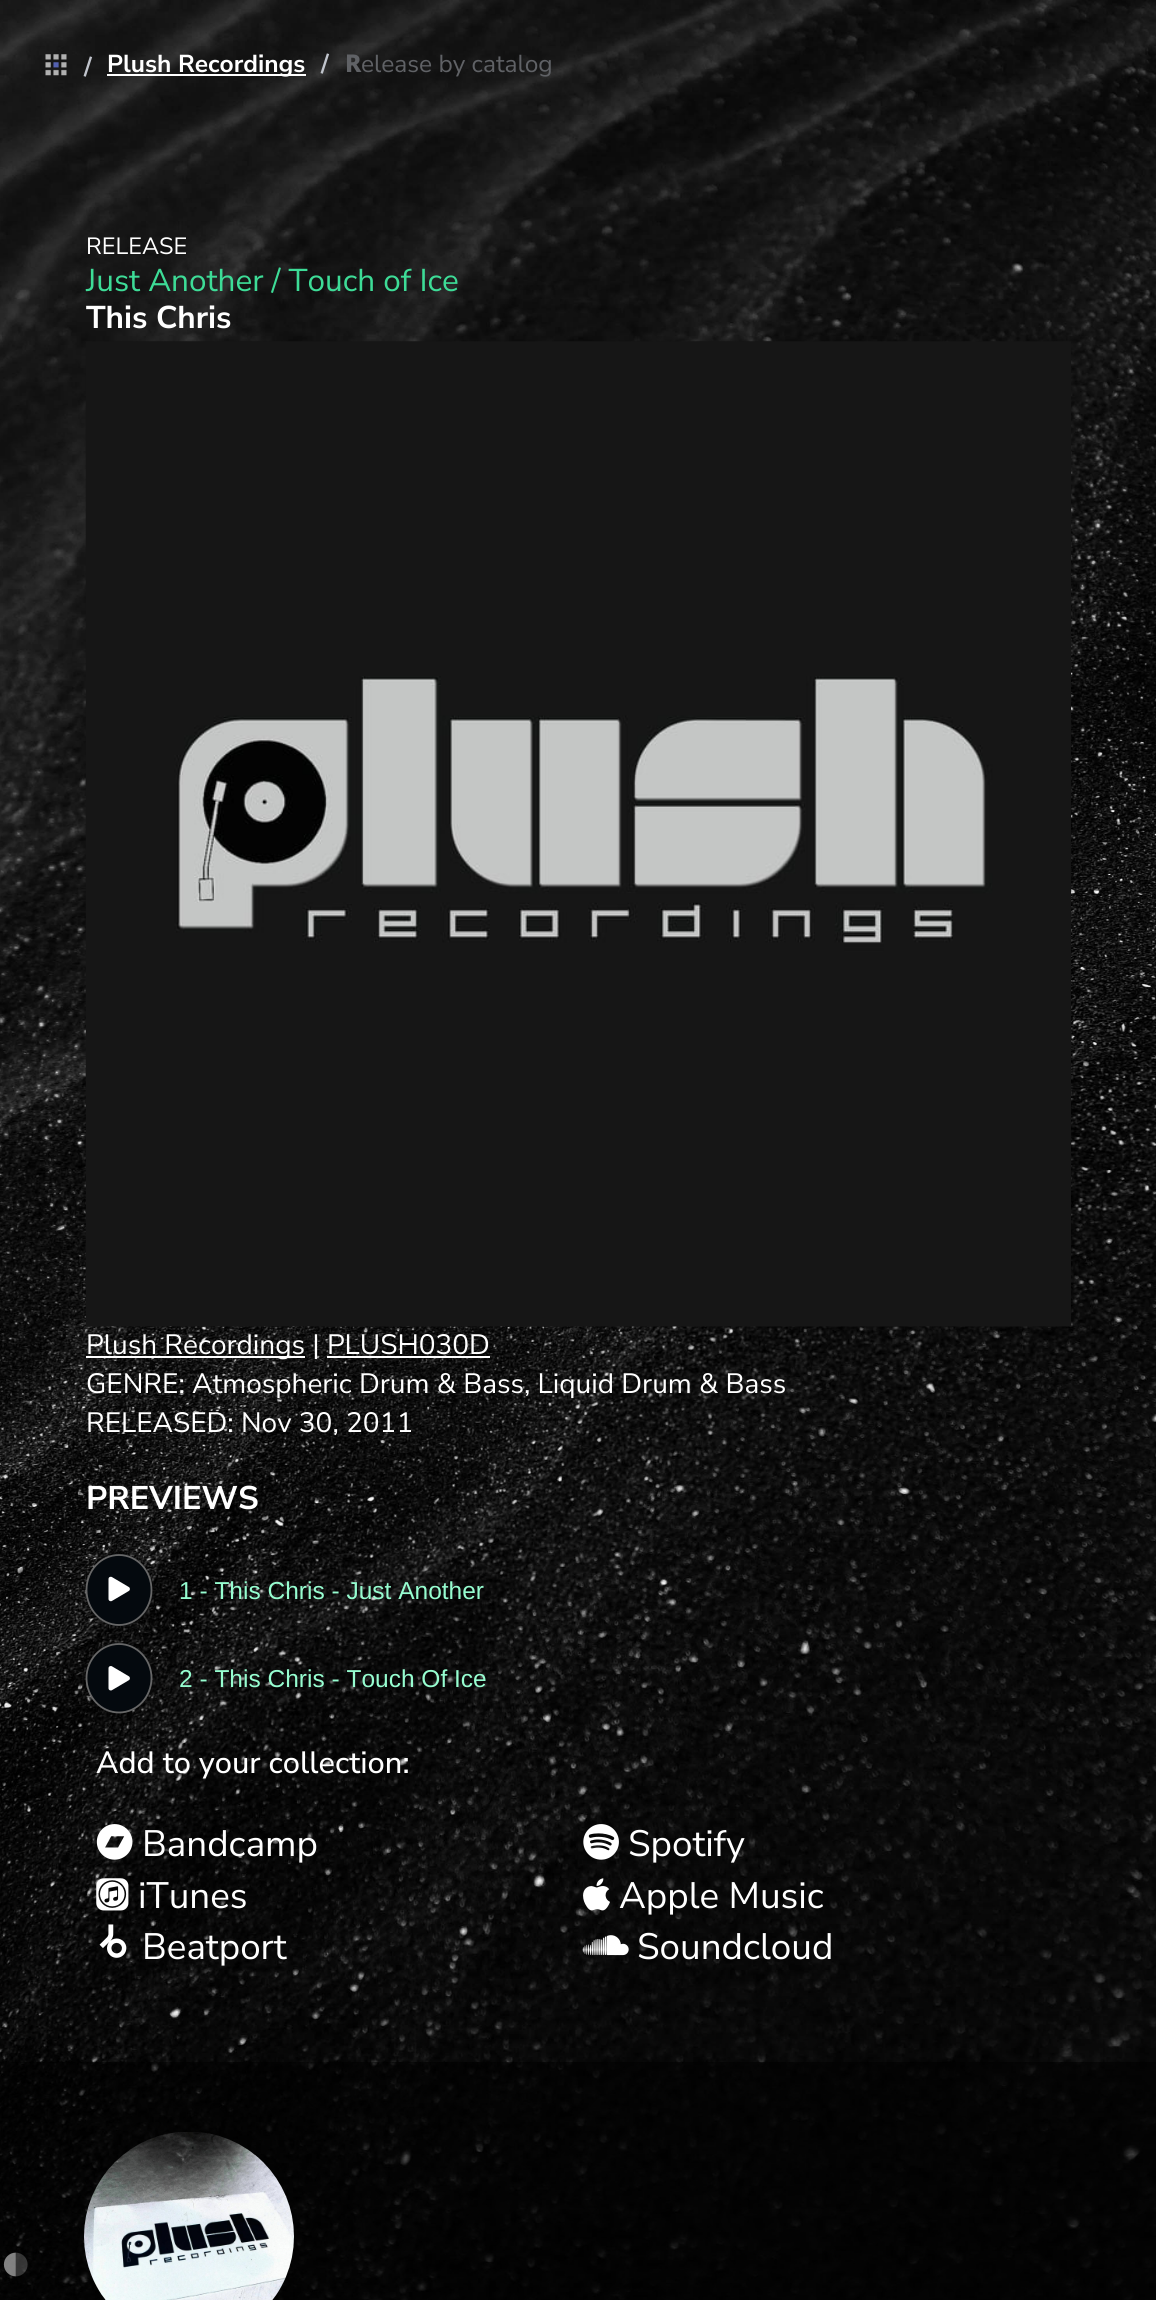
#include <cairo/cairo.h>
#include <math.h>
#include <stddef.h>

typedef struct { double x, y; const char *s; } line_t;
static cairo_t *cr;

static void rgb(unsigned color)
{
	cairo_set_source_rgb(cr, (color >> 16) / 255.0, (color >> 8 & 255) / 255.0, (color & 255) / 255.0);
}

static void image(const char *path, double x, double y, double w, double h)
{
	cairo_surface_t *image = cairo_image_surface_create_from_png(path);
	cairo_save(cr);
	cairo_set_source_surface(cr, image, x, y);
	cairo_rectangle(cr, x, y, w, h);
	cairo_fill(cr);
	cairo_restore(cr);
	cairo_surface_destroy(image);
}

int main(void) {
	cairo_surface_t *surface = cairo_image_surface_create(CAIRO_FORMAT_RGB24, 1156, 2300);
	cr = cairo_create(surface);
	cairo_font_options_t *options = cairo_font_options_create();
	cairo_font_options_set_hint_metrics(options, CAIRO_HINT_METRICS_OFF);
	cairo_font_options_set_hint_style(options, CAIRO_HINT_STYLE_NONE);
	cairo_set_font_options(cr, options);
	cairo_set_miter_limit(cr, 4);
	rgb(0xffffff);
	cairo_paint(cr);
	image("img/1.png", 0, 0, 1156, 2300);
	image("img/2.png", 45, 54, 22, 22);
	rgb(0xffffff);
	cairo_rectangle(cr, 107, 74, 199, 2);
	cairo_fill(cr);
	image("img/3.png", 85, 341, 986, 986);
	cairo_rectangle(cr, 86, 1356, 219, 2);
	cairo_fill(cr);
	cairo_rectangle(cr, 327, 1356, 163, 2);
	cairo_fill(cr);
	rgb(0x04090e);
	cairo_new_path(cr);
	cairo_move_to(cr, 119, 1554);
	cairo_curve_to(cr, 137, 1554, 152, 1570, 152, 1590);
	cairo_curve_to(cr, 152, 1610, 137, 1626, 119, 1626);
	cairo_curve_to(cr, 101, 1626, 86, 1610, 86, 1590);
	cairo_curve_to(cr, 86, 1570, 101, 1554, 119, 1554);
	cairo_close_path(cr);
	cairo_fill(cr);
	cairo_new_path(cr);
	cairo_move_to(cr, 119, 1555);
	cairo_curve_to(cr, 137, 1555, 151.5, 1570.5, 151.5, 1590);
	cairo_curve_to(cr, 151.5, 1609, 137, 1625, 119, 1625);
	cairo_curve_to(cr, 101, 1625, 86.5, 1609, 86.5, 1590);
	cairo_curve_to(cr, 86.5, 1570.5, 101, 1555, 119, 1555);
	cairo_close_path(cr);
	rgb(0x676767);
	cairo_set_line_width(cr, 1.8);
	cairo_stroke(cr);
	image("img/4.png", 108, 1576, 22, 26);
	rgb(0x04090e);
	cairo_new_path(cr);
	cairo_move_to(cr, 119, 1643);
	cairo_curve_to(cr, 137, 1643, 152, 1658.5, 152, 1678);
	cairo_curve_to(cr, 152, 1697.5, 137, 1713, 119, 1713);
	cairo_curve_to(cr, 101, 1713, 86, 1697.5, 86, 1678);
	cairo_curve_to(cr, 86, 1658.5, 101, 1643, 119, 1643);
	cairo_close_path(cr);
	cairo_fill(cr);
	cairo_new_path(cr);
	cairo_move_to(cr, 119, 1644);
	cairo_curve_to(cr, 137, 1644, 151.5, 1659.5, 151.5, 1678);
	cairo_curve_to(cr, 151.5, 1697, 137, 1712.5, 119, 1712.5);
	cairo_curve_to(cr, 101, 1712.5, 86.5, 1697, 86.5, 1678);
	cairo_curve_to(cr, 86.5, 1659.5, 101, 1644, 119, 1644);
	cairo_close_path(cr);
	rgb(0x676767);
	cairo_stroke(cr);
	image("img/5.png", 108, 1666, 22, 25);
	image("img/6.png", 96, 1824, 37, 36);
	image("img/7.png", 96, 1878, 33, 33);
	image("img/8.png", 99, 1924, 28, 34);
	image("img/9.png", 583, 1824, 36, 36);
	image("img/10.png", 583, 1878, 27, 33);
	image("img/11.png", 582, 1935, 47, 21);
	cairo_set_source_rgba(cr, 0, 0, 0, 0.55);
	cairo_rectangle(cr, 0, 2062, 1156, 238);
	cairo_fill(cr);
	image("img/12.png", 84, 2132, 210, 168);
	image("img/13.png", 3, 2252, 25, 25);
	cairo_select_font_face(cr, "Nunito Sans", CAIRO_FONT_SLANT_NORMAL, CAIRO_FONT_WEIGHT_BOLD);
	cairo_set_font_size(cr, 24.5);
	rgb(0xc0c4cc);
	cairo_move_to(cr, 84, 75);
	cairo_show_text(cr, "/");
	rgb(0xffffff);
	cairo_move_to(cr, 107, 72);
	cairo_show_text(cr, "Plush Recordings");
	rgb(0xc0c4cc);
	cairo_move_to(cr, 321, 72);
	cairo_show_text(cr, "/");
	cairo_select_font_face(cr, "Noto Sans ExtraBold", CAIRO_FONT_SLANT_NORMAL, CAIRO_FONT_WEIGHT_NORMAL);
	rgb(0x606266);
	cairo_move_to(cr, 345, 72);
	cairo_show_text(cr, "R");
	cairo_select_font_face(cr, "Nunito Sans", CAIRO_FONT_SLANT_NORMAL, CAIRO_FONT_WEIGHT_NORMAL);
	cairo_move_to(cr, 361, 72);
	cairo_show_text(cr, "elease by catalog");
	cairo_set_font_size(cr, 23.5);
	rgb(0xffffff);
	cairo_move_to(cr, 86, 254);
	cairo_show_text(cr, "RELEASE");
	cairo_set_font_size(cr, 31.5);
	rgb(0x3ddc97);
	cairo_move_to(cr, 86, 291);
	cairo_show_text(cr, "Just Another / Touch of Ice");
	cairo_select_font_face(cr, "Nunito Sans", CAIRO_FONT_SLANT_NORMAL, CAIRO_FONT_WEIGHT_BOLD);
	rgb(0xffffff);
	cairo_move_to(cr, 86, 328);
	cairo_show_text(cr, "This Chris");
	cairo_select_font_face(cr, "Nunito Sans", CAIRO_FONT_SLANT_NORMAL, CAIRO_FONT_WEIGHT_NORMAL);
	cairo_set_font_size(cr, 28);
	{
		static const line_t items[] = {
			{86, 1354, "Plush Recordings | PLUSH030D"},
			{86, 1393, "GENRE: Atmospheric Drum & Bass, Liquid Drum & Bass"},
			{86, 1432, "RELEASED: Nov 30, 2011"},
		};
		for (size_t i = 0; i < sizeof items / sizeof *items; i++) {
			cairo_move_to(cr, items[i].x, items[i].y);
			cairo_show_text(cr, items[i].s);
		}
	}
	cairo_select_font_face(cr, "Nunito Sans", CAIRO_FONT_SLANT_NORMAL, CAIRO_FONT_WEIGHT_BOLD);
	cairo_set_font_size(cr, 32.75);
	cairo_move_to(cr, 86, 1509);
	cairo_show_text(cr, "PREVIEWS");
	cairo_select_font_face(cr, "Liberation Sans", CAIRO_FONT_SLANT_NORMAL, CAIRO_FONT_WEIGHT_NORMAL);
	cairo_set_font_size(cr, 24.5);
	rgb(0x96fdd0);
	cairo_move_to(cr, 179, 1599);
	cairo_show_text(cr, "1 - This Chris - Just Another");
	cairo_move_to(cr, 179, 1687);
	cairo_show_text(cr, "2 - This Chris - Touch Of Ice");
	cairo_select_font_face(cr, "Nunito Sans Medium", CAIRO_FONT_SLANT_NORMAL, CAIRO_FONT_WEIGHT_NORMAL);
	cairo_set_font_size(cr, 30.75);
	rgb(0xffffff);
	cairo_move_to(cr, 96, 1773);
	cairo_show_text(cr, "Add to your collection:");
	cairo_select_font_face(cr, "Nunito Sans", CAIRO_FONT_SLANT_NORMAL, CAIRO_FONT_WEIGHT_NORMAL);
	cairo_set_font_size(cr, 36.75);
	{
		static const line_t items[] = {
			{142, 1856, "Bandcamp"},
			{138, 1908, "iTunes"},
			{142, 1959, "Beatport"},
			{628, 1856, "Spotify"},
			{619, 1908, "Apple Music"},
			{637, 1959, "Soundcloud"},
		};
		for (size_t i = 0; i < sizeof items / sizeof *items; i++) {
			cairo_move_to(cr, items[i].x, items[i].y);
			cairo_show_text(cr, items[i].s);
		}
	}
	cairo_surface_write_to_png(surface, "page.png");
	cairo_font_options_destroy(options);
	cairo_destroy(cr);
	cairo_surface_destroy(surface);
	return 0;
}
